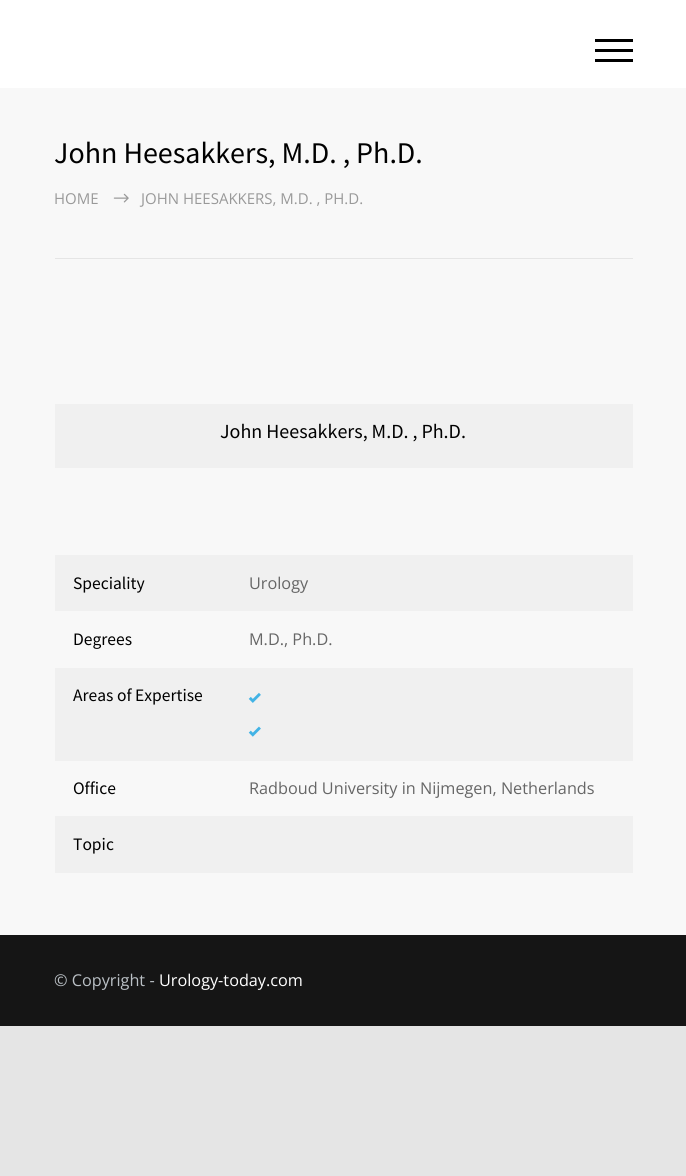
#include <cairo/cairo.h>
#include <math.h>
#include <stddef.h>

typedef struct { double x, y, w, h; unsigned color; } box_t;
static cairo_t *cr;

static void rgb(unsigned color)
{
	cairo_set_source_rgb(cr, (color >> 16) / 255.0, (color >> 8 & 255) / 255.0, (color & 255) / 255.0);
}

static void image(const char *path, double x, double y, double w, double h)
{
	cairo_surface_t *image = cairo_image_surface_create_from_png(path);
	cairo_save(cr);
	cairo_set_source_surface(cr, image, x, y);
	cairo_rectangle(cr, x, y, w, h);
	cairo_fill(cr);
	cairo_restore(cr);
	cairo_surface_destroy(image);
}

int main(void) {
	cairo_surface_t *surface = cairo_image_surface_create(CAIRO_FORMAT_RGB24, 686, 1176);
	cr = cairo_create(surface);
	cairo_font_options_t *options = cairo_font_options_create();
	cairo_font_options_set_hint_metrics(options, CAIRO_HINT_METRICS_OFF);
	cairo_font_options_set_hint_style(options, CAIRO_HINT_STYLE_NONE);
	cairo_set_font_options(cr, options);
	cairo_set_miter_limit(cr, 4);
	rgb(0xe5e5e5);
	cairo_paint(cr);
	{
		static const box_t items[] = {
			{0, 88, 686, 847, 0xf8f8f8},
			{0, 0, 686, 88, 0xffffff},
			{595, 39, 38, 3, 0x000000},
			{595, 49, 38, 3, 0x000000},
			{595, 59, 38, 3, 0x000000},
			{55, 258, 578, 1, 0xe5e5e5},
		};
		for (size_t i = 0; i < sizeof items / sizeof *items; i++) {
			rgb(items[i].color);
			cairo_rectangle(cr, items[i].x, items[i].y, items[i].w, items[i].h);
			cairo_fill(cr);
		}
	}
	image("img/1.png", 113, 193, 16, 10);
	{
		static const box_t items[] = {
			{55, 404, 578, 64, 0xf0f0f0},
			{55, 555, 578, 56, 0xf0f0f0},
			{55, 668, 578, 93, 0xf0f0f0},
		};
		for (size_t i = 0; i < sizeof items / sizeof *items; i++) {
			rgb(items[i].color);
			cairo_rectangle(cr, items[i].x, items[i].y, items[i].w, items[i].h);
			cairo_fill(cr);
		}
	}
	image("img/2.png", 248, 692, 13, 11);
	image("img/3.png", 248, 726, 13, 11);
	cairo_rectangle(cr, 55, 816, 578, 57);
	cairo_fill(cr);
	rgb(0x151515);
	cairo_rectangle(cr, 0, 935, 686, 91);
	cairo_fill(cr);
	cairo_select_font_face(cr, "Source Sans Pro", CAIRO_FONT_SLANT_NORMAL, CAIRO_FONT_WEIGHT_NORMAL);
	cairo_set_font_size(cr, 30);
	rgb(0x000000);
	cairo_move_to(cr, 54, 163);
	cairo_show_text(cr, "John Heesakkers, M.D. , Ph.D.");
	cairo_select_font_face(cr, "Open Sans", CAIRO_FONT_SLANT_NORMAL, CAIRO_FONT_WEIGHT_NORMAL);
	cairo_set_font_size(cr, 15);
	rgb(0x999999);
	cairo_move_to(cr, 54, 204);
	cairo_show_text(cr, "HOME");
	cairo_move_to(cr, 141, 204);
	cairo_show_text(cr, "JOHN HEESAKKERS, M.D. , PH.D.");
	cairo_select_font_face(cr, "Source Sans Pro", CAIRO_FONT_SLANT_NORMAL, CAIRO_FONT_WEIGHT_NORMAL);
	cairo_set_font_size(cr, 20);
	rgb(0x000000);
	cairo_move_to(cr, 220, 438);
	cairo_show_text(cr, "John Heesakkers, M.D. , Ph.D.");
	cairo_set_font_size(cr, 17.5);
	cairo_move_to(cr, 73, 589);
	cairo_show_text(cr, "Speciality");
	cairo_select_font_face(cr, "Open Sans", CAIRO_FONT_SLANT_NORMAL, CAIRO_FONT_WEIGHT_NORMAL);
	cairo_set_font_size(cr, 16.25);
	rgb(0x666666);
	cairo_move_to(cr, 249, 589);
	cairo_show_text(cr, "Urology");
	cairo_select_font_face(cr, "Source Sans Pro", CAIRO_FONT_SLANT_NORMAL, CAIRO_FONT_WEIGHT_NORMAL);
	cairo_set_font_size(cr, 17.5);
	rgb(0x000000);
	cairo_move_to(cr, 73, 645);
	cairo_show_text(cr, "Degrees");
	cairo_select_font_face(cr, "Open Sans", CAIRO_FONT_SLANT_NORMAL, CAIRO_FONT_WEIGHT_NORMAL);
	cairo_set_font_size(cr, 16.25);
	rgb(0x666666);
	cairo_move_to(cr, 249, 645);
	cairo_show_text(cr, "M.D., Ph.D.");
	cairo_select_font_face(cr, "Source Sans Pro", CAIRO_FONT_SLANT_NORMAL, CAIRO_FONT_WEIGHT_NORMAL);
	cairo_set_font_size(cr, 17.5);
	rgb(0x000000);
	cairo_move_to(cr, 73, 701);
	cairo_show_text(cr, "Areas of Expertise");
	cairo_move_to(cr, 73, 794);
	cairo_show_text(cr, "Office");
	cairo_select_font_face(cr, "Open Sans", CAIRO_FONT_SLANT_NORMAL, CAIRO_FONT_WEIGHT_NORMAL);
	cairo_set_font_size(cr, 16.25);
	rgb(0x666666);
	cairo_move_to(cr, 249, 794);
	cairo_show_text(cr, "Radboud University in Nijmegen, Netherlands");
	cairo_select_font_face(cr, "Source Sans Pro", CAIRO_FONT_SLANT_NORMAL, CAIRO_FONT_WEIGHT_NORMAL);
	cairo_set_font_size(cr, 17.5);
	rgb(0x000000);
	cairo_move_to(cr, 73, 850);
	cairo_show_text(cr, "Topic");
	cairo_select_font_face(cr, "Open Sans", CAIRO_FONT_SLANT_NORMAL, CAIRO_FONT_WEIGHT_NORMAL);
	cairo_set_font_size(cr, 16.25);
	rgb(0xbac0c5);
	cairo_move_to(cr, 54, 986);
	cairo_show_text(cr, "© Copyright -");
	rgb(0xffffff);
	cairo_move_to(cr, 159, 986);
	cairo_show_text(cr, "Urology-today.com");
	cairo_surface_write_to_png(surface, "page.png");
	cairo_font_options_destroy(options);
	cairo_destroy(cr);
	cairo_surface_destroy(surface);
	return 0;
}
